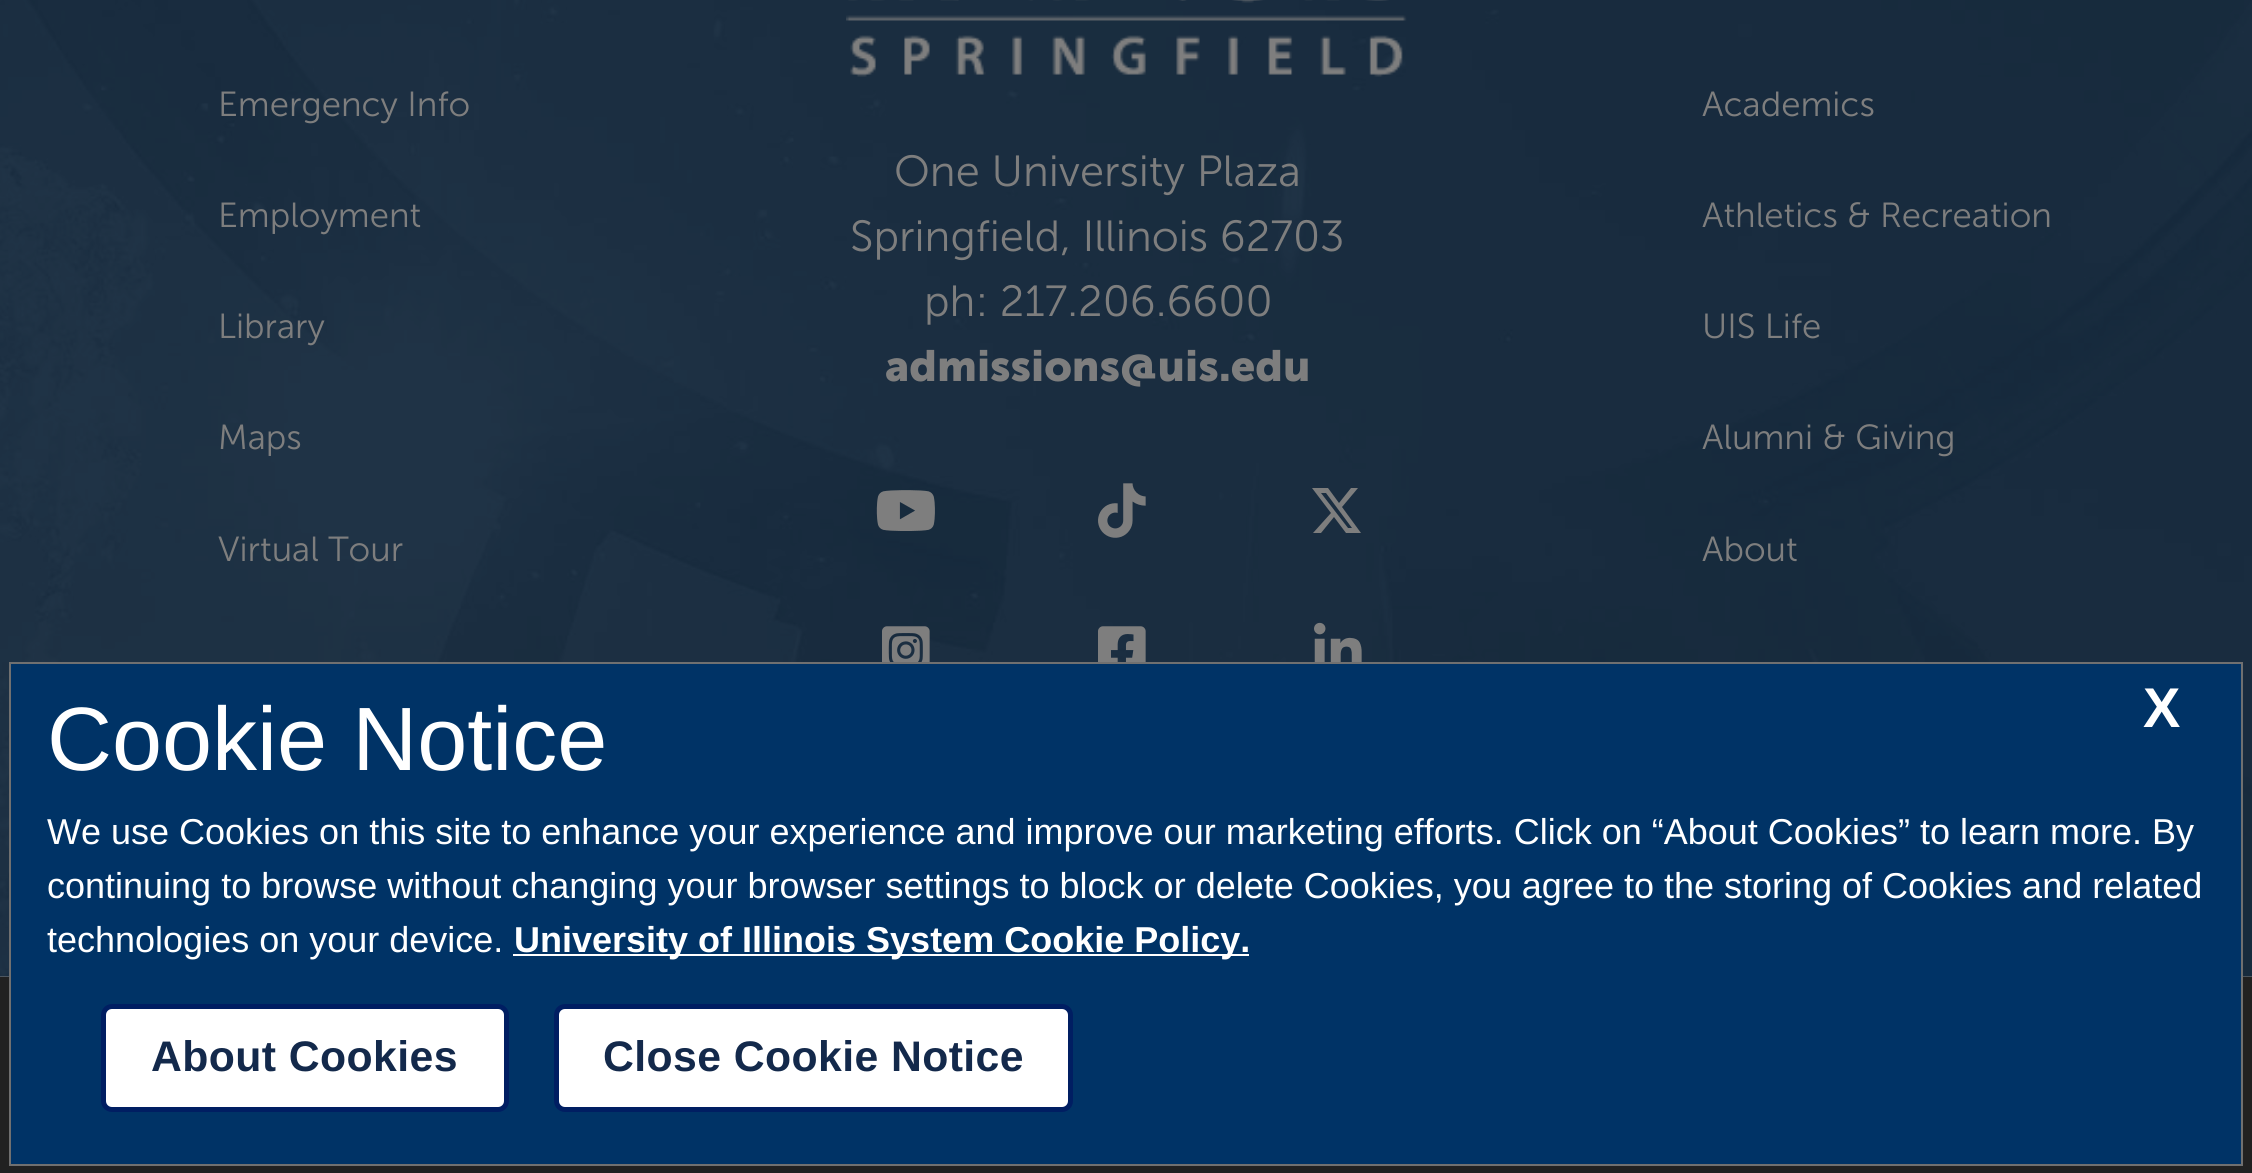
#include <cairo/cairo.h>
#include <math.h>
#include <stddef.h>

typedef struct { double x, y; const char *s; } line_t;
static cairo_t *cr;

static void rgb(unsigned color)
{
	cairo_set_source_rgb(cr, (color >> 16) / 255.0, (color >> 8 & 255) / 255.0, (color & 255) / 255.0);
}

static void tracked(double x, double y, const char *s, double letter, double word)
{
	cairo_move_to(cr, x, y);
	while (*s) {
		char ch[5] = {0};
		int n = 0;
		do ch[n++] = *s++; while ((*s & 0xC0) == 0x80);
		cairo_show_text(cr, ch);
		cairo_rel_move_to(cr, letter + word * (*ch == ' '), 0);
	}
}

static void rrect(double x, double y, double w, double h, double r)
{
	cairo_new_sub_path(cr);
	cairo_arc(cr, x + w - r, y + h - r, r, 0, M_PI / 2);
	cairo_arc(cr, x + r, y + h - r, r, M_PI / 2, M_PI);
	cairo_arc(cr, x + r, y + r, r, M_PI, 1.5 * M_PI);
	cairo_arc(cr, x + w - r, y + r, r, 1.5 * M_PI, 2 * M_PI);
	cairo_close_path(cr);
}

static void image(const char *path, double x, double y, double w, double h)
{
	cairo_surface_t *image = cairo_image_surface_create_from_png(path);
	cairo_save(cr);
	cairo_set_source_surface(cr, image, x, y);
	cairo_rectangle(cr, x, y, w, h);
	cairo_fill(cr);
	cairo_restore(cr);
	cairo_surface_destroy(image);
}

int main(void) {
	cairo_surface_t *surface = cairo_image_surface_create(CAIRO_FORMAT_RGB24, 2252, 1173);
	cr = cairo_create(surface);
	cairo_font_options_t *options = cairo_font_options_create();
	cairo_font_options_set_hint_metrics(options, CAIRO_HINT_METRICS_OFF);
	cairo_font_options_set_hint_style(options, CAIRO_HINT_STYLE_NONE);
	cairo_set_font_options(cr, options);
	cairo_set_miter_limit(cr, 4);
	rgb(0x7e7e7e);
	cairo_paint(cr);
	image("img/1.png", 0, 0, 2252, 977);
	image("img/2.png", 846, 0, 561, 77);
	image("img/3.png", 876, 490, 59, 41);
	image("img/4.png", 1098, 483, 48, 55);
	rgb(0x7e7e7e);
	cairo_new_path(cr);
	cairo_move_to(cr, 1351, 488);
	cairo_line_to(cr, 1358, 488);
	cairo_line_to(cr, 1342, 507);
	cairo_line_to(cr, 1361, 533);
	cairo_line_to(cr, 1346, 533);
	cairo_line_to(cr, 1334, 517);
	cairo_line_to(cr, 1321, 533);
	cairo_line_to(cr, 1313, 533);
	cairo_line_to(cr, 1331, 513);
	cairo_line_to(cr, 1312, 488);
	cairo_line_to(cr, 1328, 488);
	cairo_line_to(cr, 1339, 503);
	cairo_close_path(cr);
	cairo_move_to(cr, 1348, 528);
	cairo_line_to(cr, 1352, 528);
	cairo_line_to(cr, 1326, 493);
	cairo_line_to(cr, 1321, 493);
	cairo_close_path(cr);
	cairo_fill(cr);
	image("img/5.png", 882, 626, 48, 36);
	image("img/6.png", 1098, 626, 48, 36);
	image("img/7.png", 1314, 622, 48, 40);
	rgb(0x212121);
	cairo_rectangle(cr, 0, 977, 2252, 196);
	cairo_fill(cr);
	rgb(0x003366);
	cairo_rectangle(cr, 10, 663, 2232, 502);
	cairo_fill_preserve(cr);
	rgb(0x707070);
	cairo_stroke(cr);
	rgb(0xffffff);
	cairo_rectangle(cr, 513, 954, 736, 2);
	cairo_fill(cr);
	rrect(103.5, 1006.5, 403, 103, 8.5);
	cairo_fill_preserve(cr);
	rgb(0x001e62);
	cairo_set_line_width(cr, 5);
	cairo_stroke(cr);
	rgb(0xffffff);
	rrect(556.5, 1006.5, 514, 103, 8.5);
	cairo_fill_preserve(cr);
	rgb(0x001e62);
	cairo_stroke(cr);
	cairo_select_font_face(cr, "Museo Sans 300 Light", CAIRO_FONT_SLANT_NORMAL, CAIRO_FONT_WEIGHT_NORMAL);
	cairo_set_font_size(cr, 34.8);
	rgb(0x7e7e7e);
	{
		static const line_t items[] = {
			{218, 116, "Emergency Info"},
			{218, 227, "Employment"},
			{218, 338, "Library"},
			{218, 449, "Maps"},
			{218, 561, "Virtual Tour"},
		};
		for (size_t i = 0; i < sizeof items / sizeof *items; i++) {
			cairo_move_to(cr, items[i].x, items[i].y);
			cairo_show_text(cr, items[i].s);
		}
	}
	cairo_set_font_size(cr, 43.5);
	{
		static const line_t items[] = {
			{894, 186, "One University Plaza"},
			{850, 251, "Springfield, Illinois 62703"},
			{924, 316, "ph: 217.206.6600"},
		};
		for (size_t i = 0; i < sizeof items / sizeof *items; i++) {
			cairo_move_to(cr, items[i].x, items[i].y);
			cairo_show_text(cr, items[i].s);
		}
	}
	cairo_select_font_face(cr, "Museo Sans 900", CAIRO_FONT_SLANT_NORMAL, CAIRO_FONT_WEIGHT_BOLD);
	cairo_move_to(cr, 885, 381);
	cairo_show_text(cr, "admissions@uis.edu");
	cairo_select_font_face(cr, "Museo Sans 300 Light", CAIRO_FONT_SLANT_NORMAL, CAIRO_FONT_WEIGHT_NORMAL);
	cairo_set_font_size(cr, 34.8);
	{
		static const line_t items[] = {
			{1702, 116, "Academics"},
			{1702, 227, "Athletics & Recreation"},
			{1702, 338, "UIS Life"},
			{1702, 449, "Alumni & Giving"},
			{1702, 561, "About"},
		};
		for (size_t i = 0; i < sizeof items / sizeof *items; i++) {
			cairo_move_to(cr, items[i].x, items[i].y);
			cairo_show_text(cr, items[i].s);
		}
	}
	cairo_select_font_face(cr, "Liberation Sans", CAIRO_FONT_SLANT_NORMAL, CAIRO_FONT_WEIGHT_NORMAL);
	cairo_set_font_size(cr, 90);
	rgb(0xffffff);
	cairo_move_to(cr, 47, 770);
	cairo_show_text(cr, "Cookie Notice");
	cairo_select_font_face(cr, "Liberation Sans", CAIRO_FONT_SLANT_NORMAL, CAIRO_FONT_WEIGHT_BOLD);
	cairo_set_font_size(cr, 56);
	cairo_move_to(cr, 2143, 727);
	cairo_show_text(cr, "X");
	cairo_select_font_face(cr, "Liberation Sans", CAIRO_FONT_SLANT_NORMAL, CAIRO_FONT_WEIGHT_NORMAL);
	cairo_set_font_size(cr, 36);
	{
		static const line_t items[] = {
			{47, 844, "We use Cookies on this site to enhance your experience and improve our marketing efforts. Click on “About Cookies” to learn more. By"},
			{47, 898, "continuing to browse without changing your browser settings to block or delete Cookies, you agree to the storing of Cookies and related"},
			{47, 952, "technologies on your device."},
		};
		for (size_t i = 0; i < sizeof items / sizeof *items; i++) {
			cairo_move_to(cr, items[i].x, items[i].y);
			cairo_show_text(cr, items[i].s);
		}
	}
	cairo_select_font_face(cr, "Liberation Sans", CAIRO_FONT_SLANT_NORMAL, CAIRO_FONT_WEIGHT_BOLD);
	cairo_move_to(cr, 514, 952);
	cairo_show_text(cr, "University of Illinois System Cookie Policy.");
	cairo_set_font_size(cr, 42.75);
	rgb(0x13294b);
	tracked(151, 1071, "About Cookies", 0.4, 0);
	tracked(603, 1071, "Close Cookie Notice", 0.4, 0);
	cairo_surface_write_to_png(surface, "page.png");
	cairo_font_options_destroy(options);
	cairo_destroy(cr);
	cairo_surface_destroy(surface);
	return 0;
}
